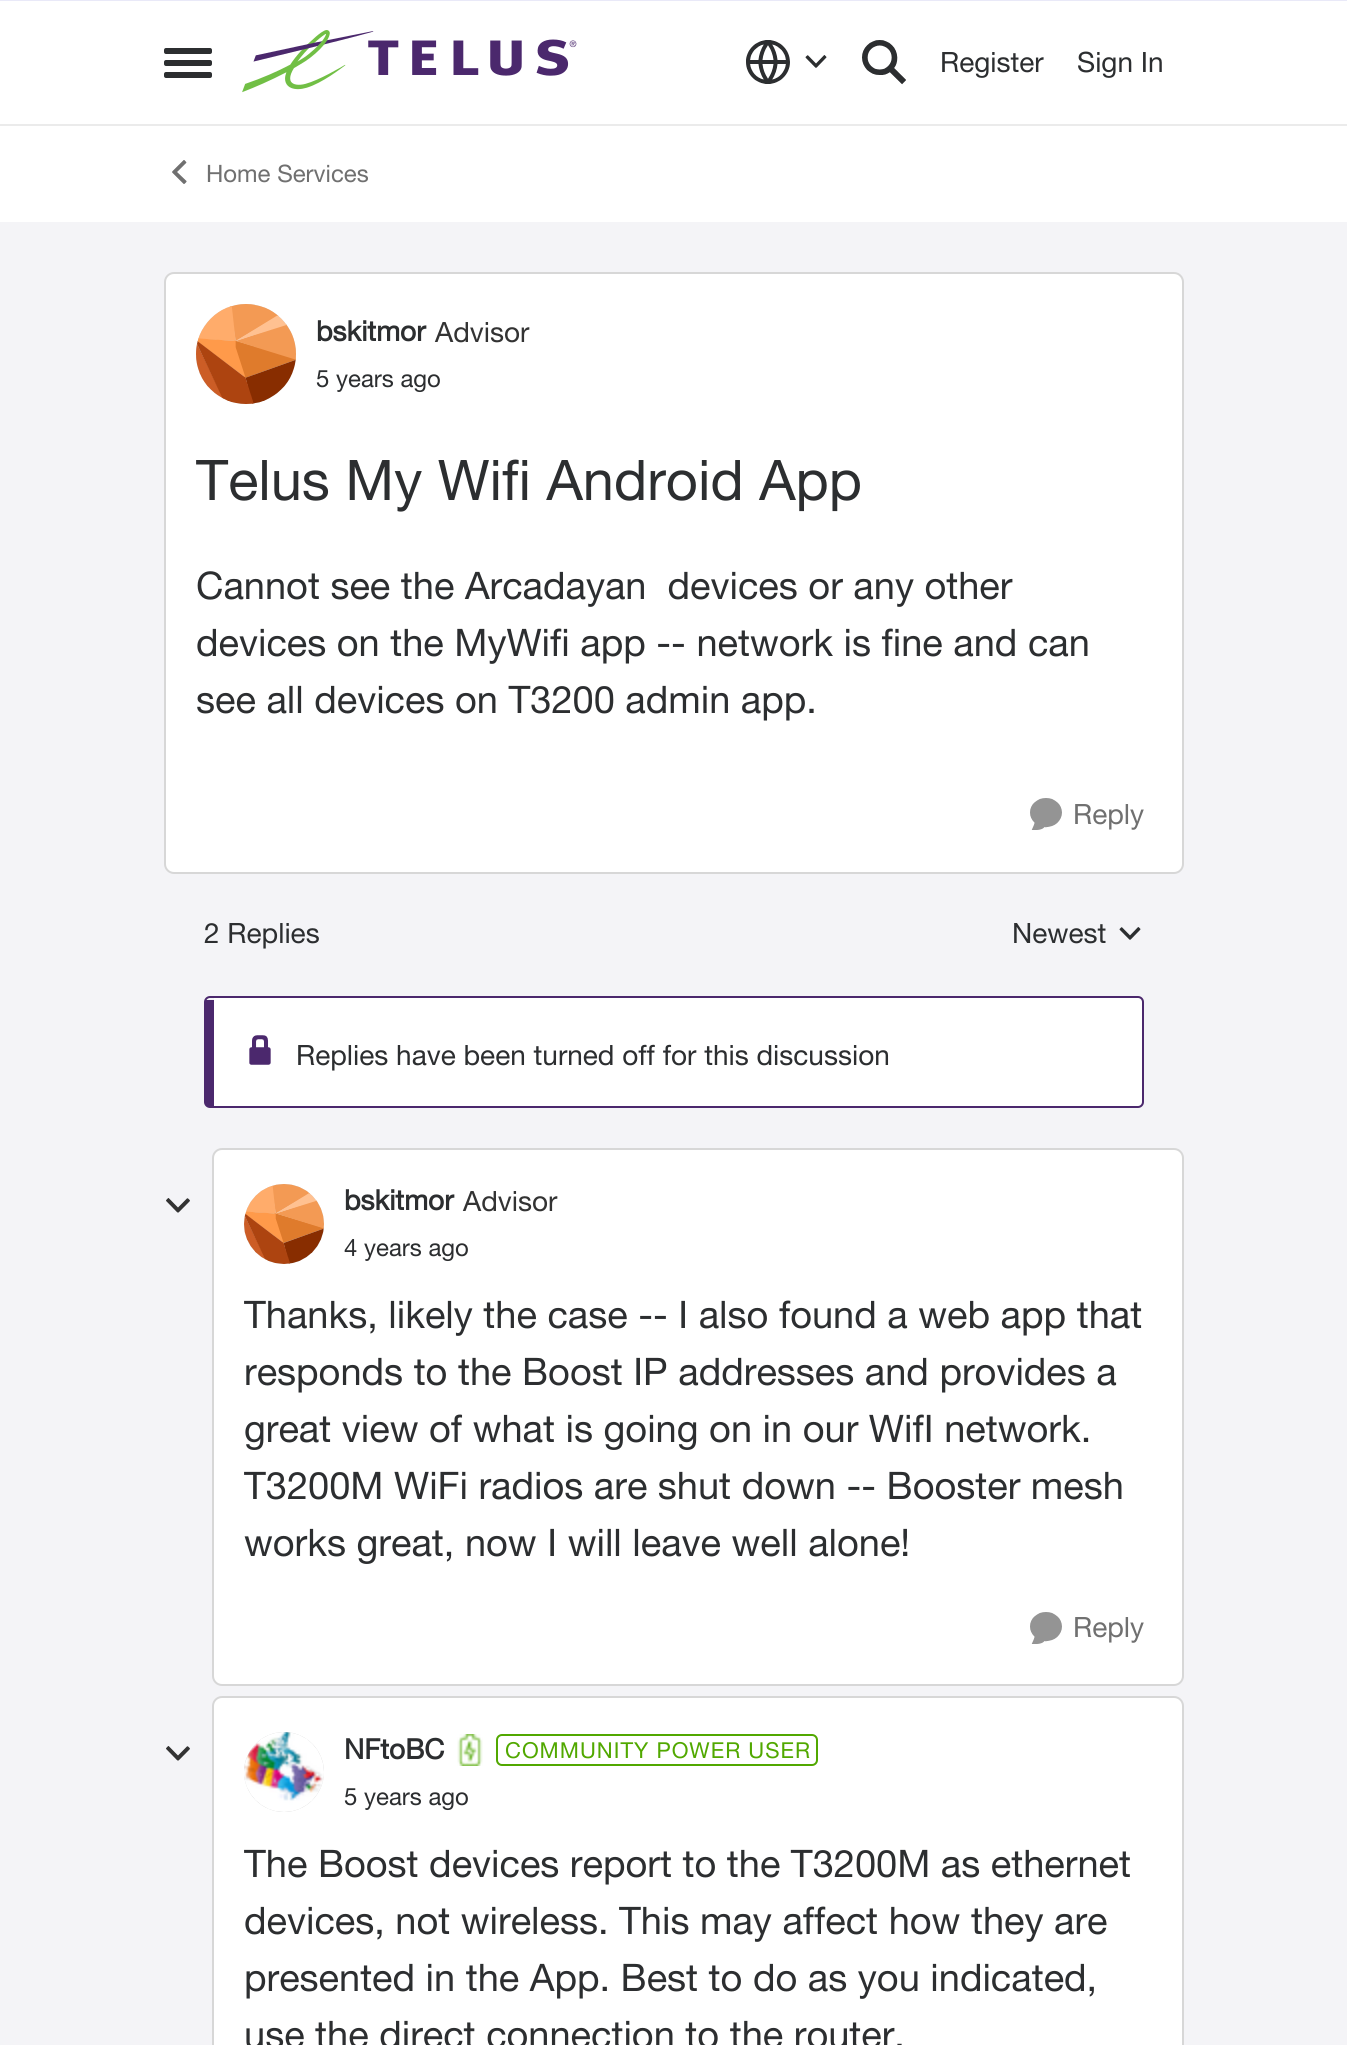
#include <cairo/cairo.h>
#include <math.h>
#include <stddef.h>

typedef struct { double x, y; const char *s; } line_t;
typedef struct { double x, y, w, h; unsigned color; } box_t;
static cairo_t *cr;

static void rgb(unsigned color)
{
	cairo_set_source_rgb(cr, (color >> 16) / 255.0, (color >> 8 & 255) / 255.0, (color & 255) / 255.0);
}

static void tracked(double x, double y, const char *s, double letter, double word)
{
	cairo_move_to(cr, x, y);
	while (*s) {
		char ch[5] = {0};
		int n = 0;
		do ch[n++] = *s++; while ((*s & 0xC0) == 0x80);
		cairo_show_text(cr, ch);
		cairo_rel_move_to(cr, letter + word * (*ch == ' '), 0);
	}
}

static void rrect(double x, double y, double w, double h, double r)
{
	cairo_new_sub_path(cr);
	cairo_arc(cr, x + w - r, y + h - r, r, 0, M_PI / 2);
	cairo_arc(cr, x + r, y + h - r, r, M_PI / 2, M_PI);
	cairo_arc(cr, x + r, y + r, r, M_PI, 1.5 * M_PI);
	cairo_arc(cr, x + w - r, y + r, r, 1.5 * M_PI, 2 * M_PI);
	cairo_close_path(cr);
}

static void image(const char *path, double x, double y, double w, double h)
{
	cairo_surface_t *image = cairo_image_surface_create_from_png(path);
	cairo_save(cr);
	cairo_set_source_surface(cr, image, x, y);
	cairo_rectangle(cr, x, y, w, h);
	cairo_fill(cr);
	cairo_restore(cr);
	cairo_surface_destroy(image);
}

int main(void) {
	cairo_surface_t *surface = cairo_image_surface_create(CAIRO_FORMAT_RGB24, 1347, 2045);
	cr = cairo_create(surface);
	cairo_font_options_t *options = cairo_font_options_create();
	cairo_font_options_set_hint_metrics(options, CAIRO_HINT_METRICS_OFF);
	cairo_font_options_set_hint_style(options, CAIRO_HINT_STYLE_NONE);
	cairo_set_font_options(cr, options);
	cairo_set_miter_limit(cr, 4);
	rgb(0xf4f4f7);
	cairo_paint(cr);
	{
		static const box_t items[] = {
			{0, 1, 1347, 221, 0xffffff},
			{0, 124, 1347, 2, 0xebebeb},
			{0, 0, 1347, 1, 0xe9e9f8},
		};
		for (size_t i = 0; i < sizeof items / sizeof *items; i++) {
			rgb(items[i].color);
			cairo_rectangle(cr, items[i].x, items[i].y, items[i].w, items[i].h);
			cairo_fill(cr);
		}
	}
	rgb(0x2c2e30);
	rrect(164, 48, 48, 6, 2);
	cairo_fill(cr);
	rrect(164, 60, 48, 6, 2);
	cairo_fill(cr);
	rrect(164, 72, 48, 6, 2);
	cairo_fill(cr);
	image("img/1.png", 242, 30, 335, 63);
	image("img/2.png", 746, 40, 44, 44);
	image("img/3.png", 805, 55, 22, 13);
	image("img/4.png", 862, 40, 44, 45);
	image("img/5.png", 172, 160, 15, 24);
	rgb(0xffffff);
	rrect(164, 272, 1020, 602, 10);
	cairo_fill(cr);
	rrect(165, 273, 1018, 600, 9);
	cairo_set_source_rgba(cr, 0, 0, 0, 0.16);
	cairo_stroke(cr);
	rgb(0xd9d9d9);
	cairo_arc(cr, 246, 354, 50, 0, 2 * M_PI);
	cairo_fill(cr);
	image("img/6.png", 196, 304, 100, 100);
	image("img/7.png", 1030, 798, 32, 32);
	image("img/8.png", 1119, 927, 22, 13);
	rgb(0xffffff);
	cairo_new_path(cr);
	cairo_move_to(cr, 214, 998);
	cairo_line_to(cr, 1138, 998);
	cairo_curve_to(cr, 1140, 998, 1142, 1000, 1142, 1002);
	cairo_line_to(cr, 1142, 1102);
	cairo_curve_to(cr, 1142, 1104, 1140, 1106, 1138, 1106);
	cairo_line_to(cr, 214, 1106);
	cairo_close_path(cr);
	cairo_fill(cr);
	rrect(205, 997, 938, 110, 5);
	rgb(0x4b286d);
	cairo_stroke(cr);
	cairo_rectangle(cr, 206, 1000, 8, 106);
	cairo_fill(cr);
	image("img/9.png", 249, 1035, 22, 30);
	image("img/10.png", 166, 1198, 24, 15);
	rgb(0xffffff);
	rrect(212, 1148, 972, 538, 10);
	cairo_fill(cr);
	rrect(213, 1149, 970, 536, 9);
	cairo_set_source_rgba(cr, 0, 0, 0, 0.16);
	cairo_stroke(cr);
	rgb(0xd9d9d9);
	cairo_arc(cr, 284, 1224, 40, 0, 2 * M_PI);
	cairo_fill(cr);
	image("img/11.png", 244, 1184, 80, 80);
	image("img/7.png", 1030, 1612, 32, 32);
	image("img/10.png", 166, 1746, 24, 15);
	rgb(0xffffff);
	rrect(212, 1696, 972, 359, 10);
	cairo_fill(cr);
	rrect(213, 1697, 970, 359, 9);
	cairo_set_source_rgba(cr, 0, 0, 0, 0.16);
	cairo_stroke(cr);
	rgb(0xd9d9d9);
	cairo_arc(cr, 284, 1772, 40, 0, 2 * M_PI);
	cairo_fill(cr);
	image("img/12.png", 244, 1732, 80, 80);
	image("img/13.png", 457, 1734, 26, 32);
	rrect(497, 1735, 320, 30, 5);
	rgb(0x51a800);
	cairo_stroke(cr);
	cairo_select_font_face(cr, "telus", CAIRO_FONT_SLANT_NORMAL, CAIRO_FONT_WEIGHT_NORMAL);
	cairo_set_font_size(cr, 28);
	rgb(0x2c2e30);
	cairo_move_to(cr, 940, 72);
	cairo_show_text(cr, "Register");
	cairo_move_to(cr, 1077, 72);
	cairo_show_text(cr, "Sign In");
	cairo_set_font_size(cr, 24);
	rgb(0x707070);
	cairo_move_to(cr, 206, 182);
	cairo_show_text(cr, "Home Services");
	cairo_select_font_face(cr, "telus", CAIRO_FONT_SLANT_NORMAL, CAIRO_FONT_WEIGHT_BOLD);
	cairo_set_font_size(cr, 28);
	rgb(0x2c2e30);
	cairo_move_to(cr, 316, 341);
	cairo_show_text(cr, "bskitmor");
	cairo_select_font_face(cr, "telus", CAIRO_FONT_SLANT_NORMAL, CAIRO_FONT_WEIGHT_NORMAL);
	rgb(0x333333);
	cairo_move_to(cr, 435, 342);
	cairo_show_text(cr, "Advisor");
	cairo_set_font_size(cr, 24);
	rgb(0x2c2e30);
	cairo_move_to(cr, 316, 387);
	cairo_show_text(cr, "5 years ago");
	cairo_set_font_size(cr, 56);
	cairo_move_to(cr, 196, 500);
	cairo_show_text(cr, "Telus My Wifi Android App");
	cairo_set_font_size(cr, 38);
	{
		static const line_t items[] = {
			{196, 599, "Cannot see the Arcadayan  devices or any other"},
			{196, 656, "devices on the MyWifi app -- network is fine and can"},
			{196, 713, "see all devices on T3200 admin app."},
		};
		for (size_t i = 0; i < sizeof items / sizeof *items; i++) {
			cairo_move_to(cr, items[i].x, items[i].y);
			cairo_show_text(cr, items[i].s);
		}
	}
	cairo_set_font_size(cr, 28);
	rgb(0x707070);
	cairo_move_to(cr, 1073, 824);
	cairo_show_text(cr, "Reply");
	rgb(0x2c2e30);
	{
		static const line_t items[] = {
			{204, 943, "2 Replies"},
			{1012, 943, "Newest"},
			{296, 1065, "Replies have been turned off for this discussion"},
		};
		for (size_t i = 0; i < sizeof items / sizeof *items; i++) {
			cairo_move_to(cr, items[i].x, items[i].y);
			cairo_show_text(cr, items[i].s);
		}
	}
	cairo_select_font_face(cr, "telus", CAIRO_FONT_SLANT_NORMAL, CAIRO_FONT_WEIGHT_BOLD);
	cairo_move_to(cr, 344, 1210);
	cairo_show_text(cr, "bskitmor");
	cairo_select_font_face(cr, "telus", CAIRO_FONT_SLANT_NORMAL, CAIRO_FONT_WEIGHT_NORMAL);
	rgb(0x333333);
	cairo_move_to(cr, 463, 1211);
	cairo_show_text(cr, "Advisor");
	cairo_set_font_size(cr, 24);
	rgb(0x2c2e30);
	cairo_move_to(cr, 344, 1256);
	cairo_show_text(cr, "4 years ago");
	cairo_set_font_size(cr, 38);
	{
		static const line_t items[] = {
			{244, 1328, "Thanks, likely the case -- I also found a web app that"},
			{244, 1385, "responds to the Boost IP addresses and provides a"},
			{244, 1442, "great view of what is going on in our WifI network."},
			{244, 1499, "T3200M WiFi radios are shut down -- Booster mesh"},
			{244, 1556, "works great, now I will leave well alone!"},
		};
		for (size_t i = 0; i < sizeof items / sizeof *items; i++) {
			cairo_move_to(cr, items[i].x, items[i].y);
			cairo_show_text(cr, items[i].s);
		}
	}
	cairo_set_font_size(cr, 28);
	rgb(0x707070);
	cairo_move_to(cr, 1073, 1637);
	cairo_show_text(cr, "Reply");
	cairo_select_font_face(cr, "telus", CAIRO_FONT_SLANT_NORMAL, CAIRO_FONT_WEIGHT_BOLD);
	rgb(0x2c2e30);
	cairo_move_to(cr, 344, 1759);
	cairo_show_text(cr, "NFtoBC");
	cairo_select_font_face(cr, "telus", CAIRO_FONT_SLANT_NORMAL, CAIRO_FONT_WEIGHT_NORMAL);
	cairo_set_font_size(cr, 22);
	rgb(0x51a800);
	tracked(505, 1758, "COMMUNITY POWER USER", 1, 0);
	cairo_set_font_size(cr, 24);
	rgb(0x2c2e30);
	cairo_move_to(cr, 344, 1805);
	cairo_show_text(cr, "5 years ago");
	cairo_set_font_size(cr, 38);
	{
		static const line_t items[] = {
			{244, 1877, "The Boost devices report to the T3200M as ethernet"},
			{244, 1934, "devices, not wireless. This may affect how they are"},
			{244, 1991, "presented in the App. Best to do as you indicated,"},
			{244, 2048, "use the direct connection to the router."},
		};
		for (size_t i = 0; i < sizeof items / sizeof *items; i++) {
			cairo_move_to(cr, items[i].x, items[i].y);
			cairo_show_text(cr, items[i].s);
		}
	}
	cairo_surface_write_to_png(surface, "page.png");
	cairo_font_options_destroy(options);
	cairo_destroy(cr);
	cairo_surface_destroy(surface);
	return 0;
}
